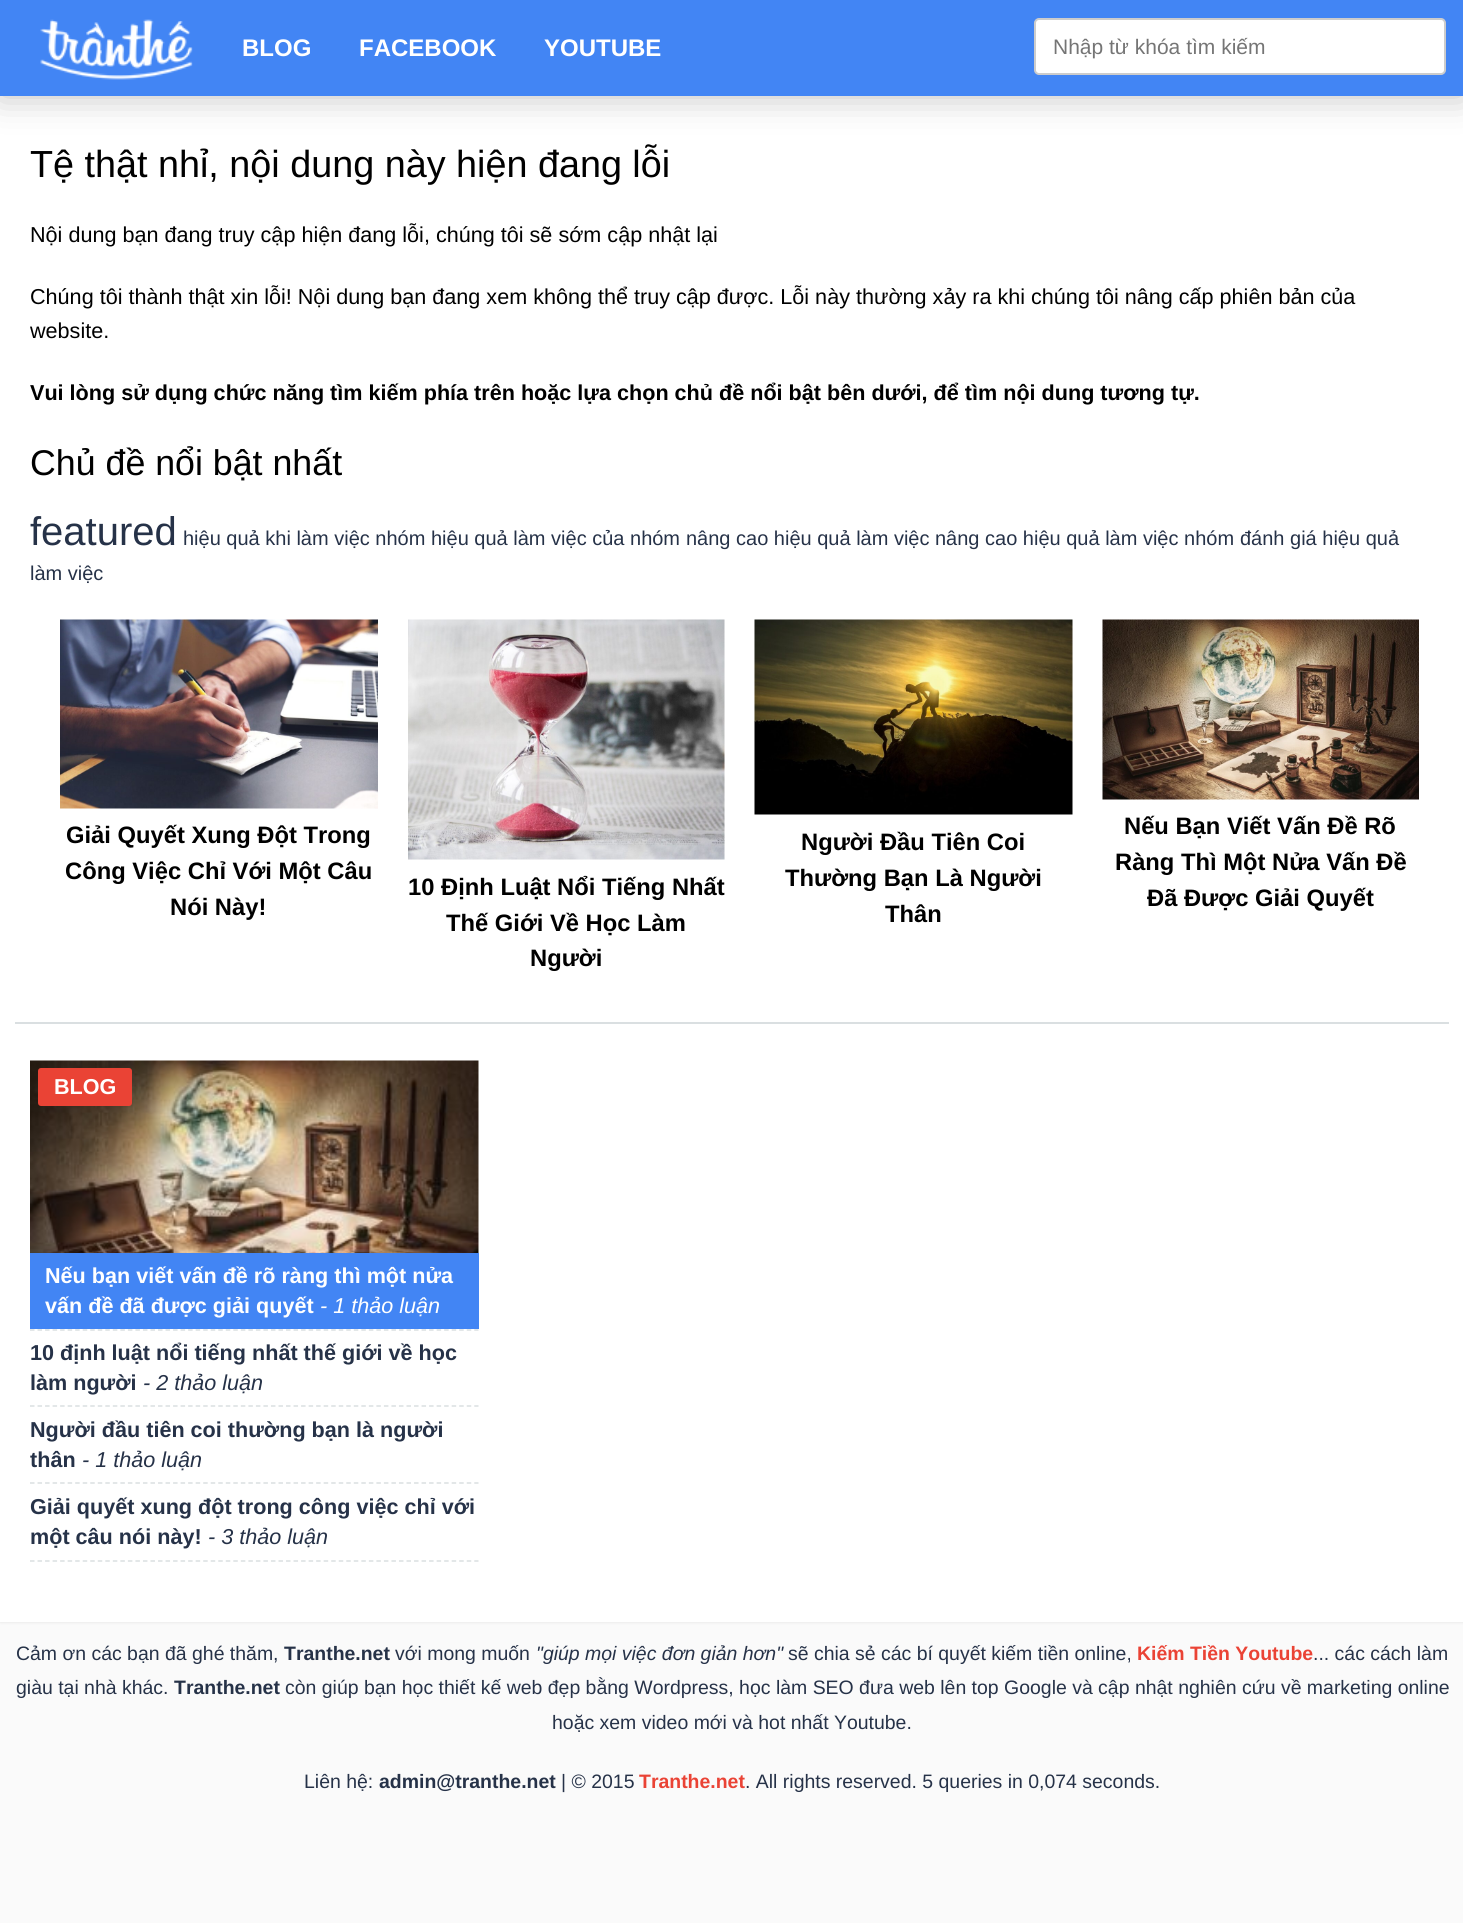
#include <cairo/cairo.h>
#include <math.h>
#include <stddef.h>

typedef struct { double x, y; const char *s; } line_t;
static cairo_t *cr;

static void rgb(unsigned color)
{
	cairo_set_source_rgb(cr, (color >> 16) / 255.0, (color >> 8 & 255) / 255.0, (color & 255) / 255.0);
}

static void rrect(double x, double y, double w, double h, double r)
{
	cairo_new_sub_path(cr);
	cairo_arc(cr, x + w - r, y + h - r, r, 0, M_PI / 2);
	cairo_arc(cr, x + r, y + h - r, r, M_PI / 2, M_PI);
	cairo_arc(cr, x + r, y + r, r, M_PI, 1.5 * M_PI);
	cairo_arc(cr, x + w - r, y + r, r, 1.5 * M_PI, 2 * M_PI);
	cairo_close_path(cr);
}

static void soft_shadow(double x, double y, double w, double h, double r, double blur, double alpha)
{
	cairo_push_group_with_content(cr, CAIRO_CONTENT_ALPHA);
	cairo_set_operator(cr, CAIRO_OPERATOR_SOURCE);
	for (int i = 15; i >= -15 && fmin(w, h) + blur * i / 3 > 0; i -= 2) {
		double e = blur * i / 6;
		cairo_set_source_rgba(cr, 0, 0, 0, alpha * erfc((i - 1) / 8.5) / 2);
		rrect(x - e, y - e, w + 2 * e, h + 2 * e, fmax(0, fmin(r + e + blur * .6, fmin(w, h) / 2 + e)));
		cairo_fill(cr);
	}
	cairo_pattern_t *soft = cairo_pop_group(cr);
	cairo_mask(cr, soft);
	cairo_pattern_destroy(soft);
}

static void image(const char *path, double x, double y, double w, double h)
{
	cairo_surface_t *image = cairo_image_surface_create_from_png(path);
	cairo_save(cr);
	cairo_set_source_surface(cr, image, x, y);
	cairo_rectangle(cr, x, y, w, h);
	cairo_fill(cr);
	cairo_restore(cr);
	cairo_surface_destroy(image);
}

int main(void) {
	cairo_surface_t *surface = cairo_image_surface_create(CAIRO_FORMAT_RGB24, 1463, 1923);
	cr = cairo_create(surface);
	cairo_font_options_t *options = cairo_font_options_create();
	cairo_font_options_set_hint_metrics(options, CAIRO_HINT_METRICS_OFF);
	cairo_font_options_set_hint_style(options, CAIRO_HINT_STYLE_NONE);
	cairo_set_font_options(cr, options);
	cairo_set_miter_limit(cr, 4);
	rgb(0xfafafa);
	cairo_paint(cr);
	rgb(0x000000);
	soft_shadow(0, 96, 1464, 1526, 0, 1.5, 0.1);
	rgb(0xffffff);
	cairo_rectangle(cr, 0, 96, 1463, 1526);
	cairo_fill(cr);
	rgb(0x000000);
	soft_shadow(0, 0, 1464, 96, 0, 18, 0.25);
	rgb(0x4285f4);
	cairo_rectangle(cr, 0, 0, 1463, 96);
	cairo_fill(cr);
	image("img/1.png", 40, 19, 153, 61);
	rgb(0xffffff);
	rrect(1035, 19, 410, 55, 4);
	cairo_fill_preserve(cr);
	rgb(0xcccccc);
	cairo_stroke(cr);
	image("img/2.png", 60, 619, 318, 190);
	image("img/3.png", 408, 619, 317, 241);
	image("img/4.png", 754, 619, 319, 196);
	image("img/5.png", 1102, 619, 317, 181);
	rgb(0xdadfe1);
	cairo_rectangle(cr, 15, 1022, 1434, 2);
	cairo_fill(cr);
	cairo_new_path(cr);
	cairo_move_to(cr, 30, 1330);
	cairo_line_to(cr, 478.5, 1330);
	cairo_set_line_width(cr, 1.5);
	cairo_set_dash(cr, (double[]){4.5, 3.03}, 2, 0);
	cairo_stroke(cr);
	image("img/6.png", 30, 1060, 449, 193);
	rgb(0xea4335);
	rrect(38, 1068, 94, 38, 3);
	cairo_fill(cr);
	rgb(0x4285f4);
	cairo_rectangle(cr, 30, 1253, 449, 76);
	cairo_fill(cr);
	cairo_new_path(cr);
	cairo_move_to(cr, 30, 1406);
	cairo_line_to(cr, 478.5, 1406);
	rgb(0xdadfe1);
	cairo_stroke(cr);
	cairo_new_path(cr);
	cairo_move_to(cr, 30, 1483);
	cairo_line_to(cr, 478.5, 1483);
	cairo_stroke(cr);
	cairo_new_path(cr);
	cairo_move_to(cr, 30, 1561);
	cairo_line_to(cr, 478.5, 1561);
	cairo_stroke(cr);
	cairo_select_font_face(cr, "Liberation Sans", CAIRO_FONT_SLANT_NORMAL, CAIRO_FONT_WEIGHT_BOLD);
	cairo_set_font_size(cr, 24);
	rgb(0xffffff);
	{
		static const line_t items[] = {
			{242, 56, "BLOG"},
			{359, 56, "FACEBOOK"},
			{544, 56, "YOUTUBE"},
		};
		for (size_t i = 0; i < sizeof items / sizeof *items; i++) {
			cairo_move_to(cr, items[i].x, items[i].y);
			cairo_show_text(cr, items[i].s);
		}
	}
	cairo_select_font_face(cr, "Liberation Sans", CAIRO_FONT_SLANT_NORMAL, CAIRO_FONT_WEIGHT_NORMAL);
	cairo_set_font_size(cr, 21);
	rgb(0x757575);
	cairo_move_to(cr, 1053, 54);
	cairo_show_text(cr, "Nhập từ khóa tìm kiếm");
	cairo_set_font_size(cr, 37.75);
	rgb(0x000000);
	cairo_move_to(cr, 30, 177);
	cairo_show_text(cr, "Tệ thật nhỉ, nội dung này hiện đang lỗi");
	cairo_set_font_size(cr, 21.6);
	{
		static const line_t items[] = {
			{30, 242, "Nội dung bạn đang truy cập hiện đang lỗi, chúng tôi sẽ sớm cập nhật lại"},
			{30, 304, "Chúng tôi thành thật xin lỗi! Nội dung bạn đang xem không thể truy cập được. Lỗi này thường xảy ra khi chúng tôi nâng cấp phiên bản của"},
			{30, 338, "website."},
		};
		for (size_t i = 0; i < sizeof items / sizeof *items; i++) {
			cairo_move_to(cr, items[i].x, items[i].y);
			cairo_show_text(cr, items[i].s);
		}
	}
	cairo_select_font_face(cr, "Liberation Sans", CAIRO_FONT_SLANT_NORMAL, CAIRO_FONT_WEIGHT_BOLD);
	cairo_move_to(cr, 30, 400);
	cairo_show_text(cr, "Vui lòng sử dụng chức năng tìm kiếm phía trên hoặc lựa chọn chủ đề nổi bật bên dưới, để tìm nội dung tương tự.");
	cairo_select_font_face(cr, "Liberation Sans", CAIRO_FONT_SLANT_NORMAL, CAIRO_FONT_WEIGHT_NORMAL);
	cairo_set_font_size(cr, 35.75);
	cairo_move_to(cr, 30, 475);
	cairo_show_text(cr, "Chủ đề nổi bật nhất");
	cairo_set_font_size(cr, 40);
	rgb(0x263248);
	cairo_move_to(cr, 30, 545);
	cairo_show_text(cr, "featured");
	cairo_set_font_size(cr, 20);
	{
		static const line_t items[] = {
			{183, 545, "hiệu quả khi làm việc nhóm"},
			{431, 545, "hiệu quả làm việc của nhóm"},
			{686, 545, "nâng cao hiệu quả làm việc"},
			{935, 545, "nâng cao hiệu quả làm việc nhóm"},
			{1240, 545, "đánh giá hiệu quả"},
			{30, 580, "làm việc"},
		};
		for (size_t i = 0; i < sizeof items / sizeof *items; i++) {
			cairo_move_to(cr, items[i].x, items[i].y);
			cairo_show_text(cr, items[i].s);
		}
	}
	cairo_select_font_face(cr, "Liberation Sans", CAIRO_FONT_SLANT_NORMAL, CAIRO_FONT_WEIGHT_BOLD);
	cairo_set_font_size(cr, 23.75);
	rgb(0x000000);
	{
		static const line_t items[] = {
			{66, 843, "Giải Quyết Xung Đột Trong"},
			{65, 879, "Công Việc Chỉ Với Một Câu"},
			{170, 915, "Nói Này!"},
			{408, 895, "10 Định Luật Nổi Tiếng Nhất"},
			{446, 931, "Thế Giới Về Học Làm"},
			{530, 966, "Người"},
			{801, 850, "Người Đầu Tiên Coi"},
			{785, 886, "Thường Bạn Là Người"},
			{885, 922, "Thân"},
			{1124, 834, "Nếu Bạn Viết Vấn Đề Rõ"},
			{1115, 870, "Ràng Thì Một Nửa Vấn Đề"},
			{1147, 906, "Đã Được Giải Quyết"},
		};
		for (size_t i = 0; i < sizeof items / sizeof *items; i++) {
			cairo_move_to(cr, items[i].x, items[i].y);
			cairo_show_text(cr, items[i].s);
		}
	}
	cairo_set_font_size(cr, 21.6);
	rgb(0xffffff);
	{
		static const line_t items[] = {
			{54, 1094, "BLOG"},
			{45, 1283, "Nếu bạn viết vấn đề rõ ràng thì một nửa"},
			{45, 1313, "vấn đề đã được giải quyết"},
		};
		for (size_t i = 0; i < sizeof items / sizeof *items; i++) {
			cairo_move_to(cr, items[i].x, items[i].y);
			cairo_show_text(cr, items[i].s);
		}
	}
	cairo_select_font_face(cr, "Liberation Sans", CAIRO_FONT_SLANT_ITALIC, CAIRO_FONT_WEIGHT_NORMAL);
	cairo_move_to(cr, 320, 1313);
	cairo_show_text(cr, "- 1 thảo luận");
	cairo_select_font_face(cr, "Liberation Sans", CAIRO_FONT_SLANT_NORMAL, CAIRO_FONT_WEIGHT_BOLD);
	rgb(0x263248);
	cairo_move_to(cr, 30, 1360);
	cairo_show_text(cr, "10 định luật nổi tiếng nhất thế giới về học");
	cairo_move_to(cr, 30, 1390);
	cairo_show_text(cr, "làm người");
	cairo_select_font_face(cr, "Liberation Sans", CAIRO_FONT_SLANT_ITALIC, CAIRO_FONT_WEIGHT_NORMAL);
	cairo_move_to(cr, 143, 1390);
	cairo_show_text(cr, "- 2 thảo luận");
	cairo_select_font_face(cr, "Liberation Sans", CAIRO_FONT_SLANT_NORMAL, CAIRO_FONT_WEIGHT_BOLD);
	cairo_move_to(cr, 30, 1437);
	cairo_show_text(cr, "Người đầu tiên coi thường bạn là người");
	cairo_move_to(cr, 30, 1467);
	cairo_show_text(cr, "thân");
	cairo_select_font_face(cr, "Liberation Sans", CAIRO_FONT_SLANT_ITALIC, CAIRO_FONT_WEIGHT_NORMAL);
	cairo_move_to(cr, 82, 1467);
	cairo_show_text(cr, "- 1 thảo luận");
	cairo_select_font_face(cr, "Liberation Sans", CAIRO_FONT_SLANT_NORMAL, CAIRO_FONT_WEIGHT_BOLD);
	cairo_move_to(cr, 30, 1514);
	cairo_show_text(cr, "Giải quyết xung đột trong công việc chỉ với");
	cairo_move_to(cr, 30, 1544);
	cairo_show_text(cr, "một câu nói này!");
	cairo_select_font_face(cr, "Liberation Sans", CAIRO_FONT_SLANT_ITALIC, CAIRO_FONT_WEIGHT_NORMAL);
	cairo_move_to(cr, 208, 1544);
	cairo_show_text(cr, "- 3 thảo luận");
	cairo_select_font_face(cr, "Liberation Sans", CAIRO_FONT_SLANT_NORMAL, CAIRO_FONT_WEIGHT_NORMAL);
	cairo_set_font_size(cr, 19.45);
	cairo_move_to(cr, 16, 1660);
	cairo_show_text(cr, "Cảm ơn các bạn đã ghé thăm,");
	cairo_select_font_face(cr, "Liberation Sans", CAIRO_FONT_SLANT_NORMAL, CAIRO_FONT_WEIGHT_BOLD);
	cairo_move_to(cr, 284, 1660);
	cairo_show_text(cr, "Tranthe.net");
	cairo_select_font_face(cr, "Liberation Sans", CAIRO_FONT_SLANT_NORMAL, CAIRO_FONT_WEIGHT_NORMAL);
	cairo_move_to(cr, 395, 1660);
	cairo_show_text(cr, "với mong muốn");
	cairo_select_font_face(cr, "Liberation Sans", CAIRO_FONT_SLANT_ITALIC, CAIRO_FONT_WEIGHT_NORMAL);
	cairo_move_to(cr, 536, 1660);
	cairo_show_text(cr, "\"giúp mọi việc đơn giản hơn\"");
	cairo_select_font_face(cr, "Liberation Sans", CAIRO_FONT_SLANT_NORMAL, CAIRO_FONT_WEIGHT_NORMAL);
	cairo_move_to(cr, 788, 1660);
	cairo_show_text(cr, "sẽ chia sẻ các bí quyết kiếm tiền online,");
	cairo_select_font_face(cr, "Liberation Sans", CAIRO_FONT_SLANT_NORMAL, CAIRO_FONT_WEIGHT_BOLD);
	rgb(0xea4335);
	cairo_move_to(cr, 1137, 1660);
	cairo_show_text(cr, "Kiếm Tiền Youtube");
	cairo_select_font_face(cr, "Liberation Sans", CAIRO_FONT_SLANT_NORMAL, CAIRO_FONT_WEIGHT_NORMAL);
	rgb(0x263248);
	cairo_move_to(cr, 1313, 1660);
	cairo_show_text(cr, "... các cách làm");
	cairo_move_to(cr, 16, 1694);
	cairo_show_text(cr, "giàu tại nhà khác.");
	cairo_select_font_face(cr, "Liberation Sans", CAIRO_FONT_SLANT_NORMAL, CAIRO_FONT_WEIGHT_BOLD);
	cairo_move_to(cr, 174, 1694);
	cairo_show_text(cr, "Tranthe.net");
	cairo_select_font_face(cr, "Liberation Sans", CAIRO_FONT_SLANT_NORMAL, CAIRO_FONT_WEIGHT_NORMAL);
	{
		static const line_t items[] = {
			{285, 1694, "còn giúp bạn học thiết kế web đẹp bằng Wordpress, học làm SEO đưa web lên top Google và cập nhật nghiên cứu về marketing online"},
			{552, 1729, "hoặc xem video mới và hot nhất Youtube."},
			{304, 1788, "Liên hệ:"},
		};
		for (size_t i = 0; i < sizeof items / sizeof *items; i++) {
			cairo_move_to(cr, items[i].x, items[i].y);
			cairo_show_text(cr, items[i].s);
		}
	}
	cairo_select_font_face(cr, "Liberation Sans", CAIRO_FONT_SLANT_NORMAL, CAIRO_FONT_WEIGHT_BOLD);
	cairo_move_to(cr, 379, 1788);
	cairo_show_text(cr, "admin@tranthe.net");
	cairo_select_font_face(cr, "Liberation Sans", CAIRO_FONT_SLANT_NORMAL, CAIRO_FONT_WEIGHT_NORMAL);
	cairo_move_to(cr, 561, 1788);
	cairo_show_text(cr, "| © 2015");
	cairo_select_font_face(cr, "Liberation Sans", CAIRO_FONT_SLANT_NORMAL, CAIRO_FONT_WEIGHT_BOLD);
	rgb(0xea4335);
	cairo_move_to(cr, 639, 1788);
	cairo_show_text(cr, "Tranthe.net");
	cairo_select_font_face(cr, "Liberation Sans", CAIRO_FONT_SLANT_NORMAL, CAIRO_FONT_WEIGHT_NORMAL);
	rgb(0x263248);
	cairo_move_to(cr, 745, 1788);
	cairo_show_text(cr, ". All rights reserved. 5 queries in 0,074 seconds.");
	cairo_surface_write_to_png(surface, "page.png");
	cairo_font_options_destroy(options);
	cairo_destroy(cr);
	cairo_surface_destroy(surface);
	return 0;
}
